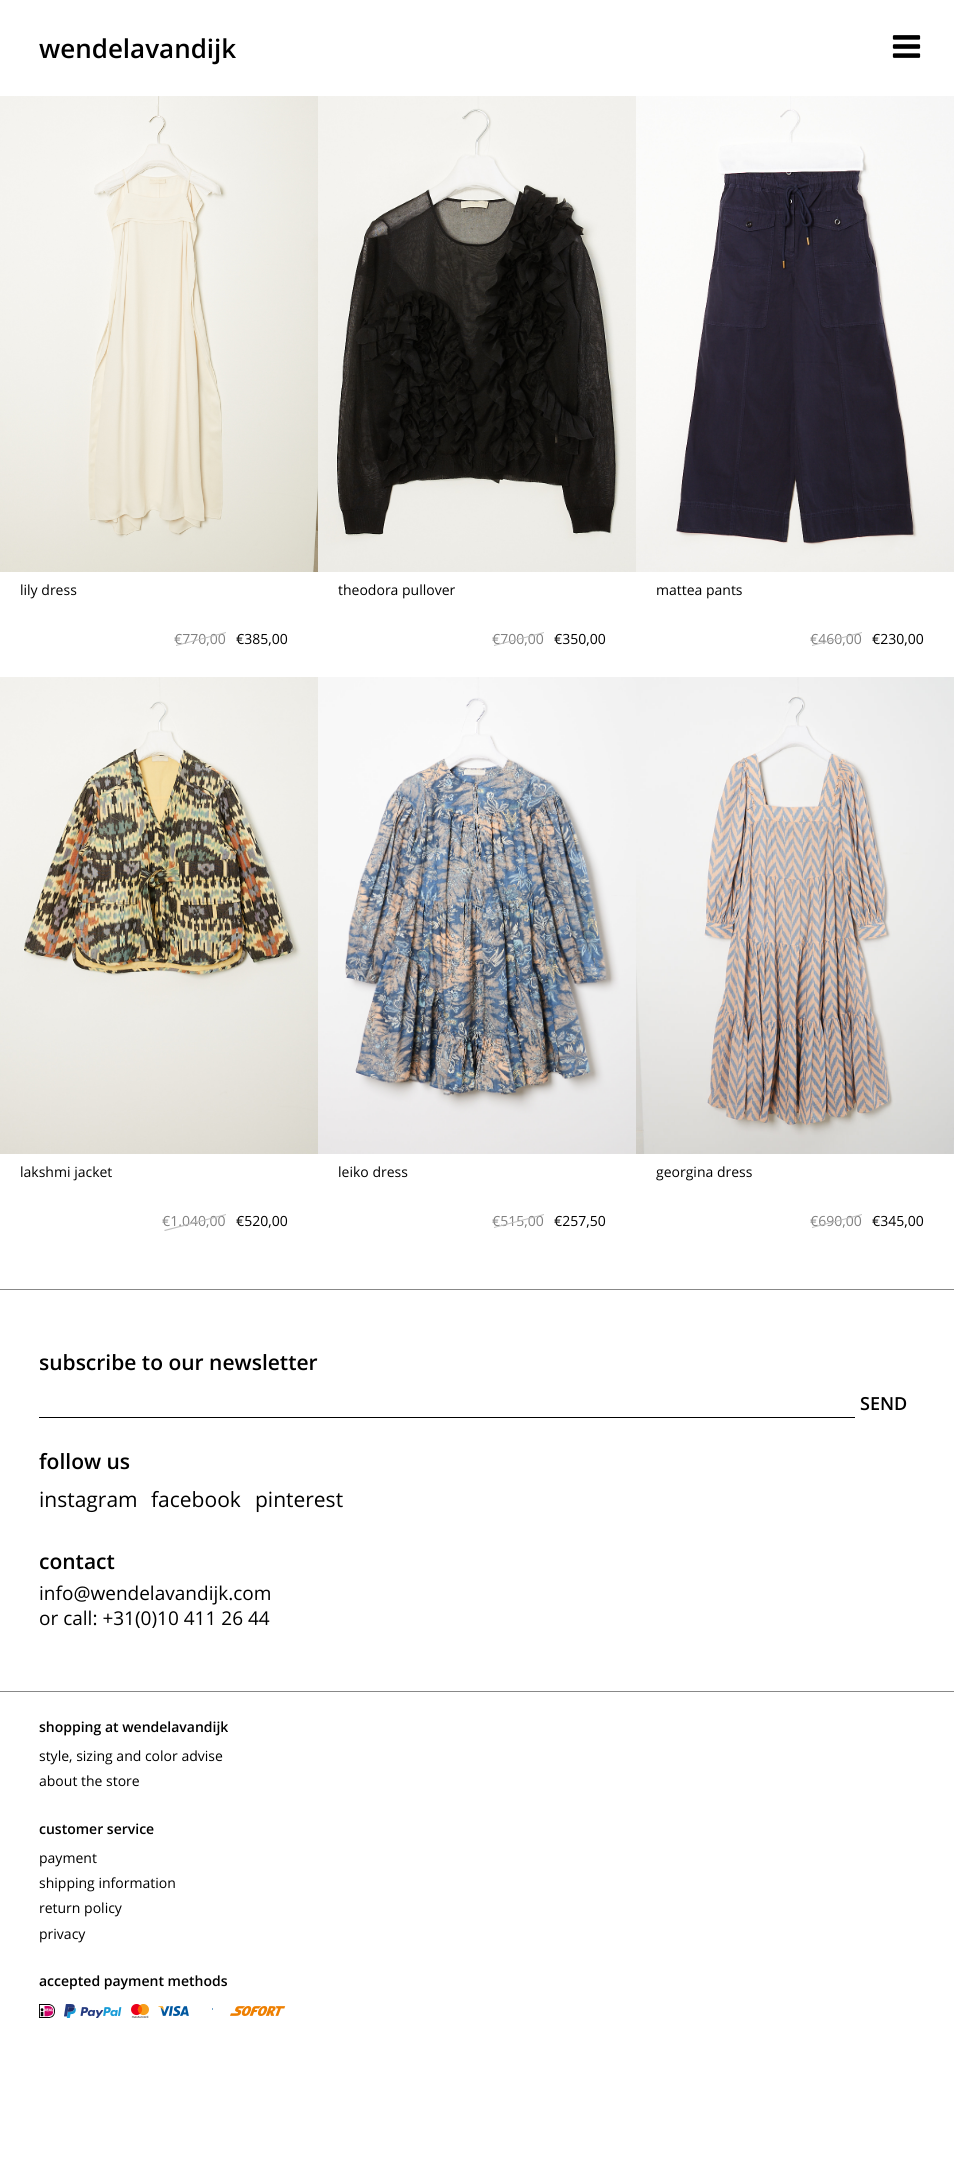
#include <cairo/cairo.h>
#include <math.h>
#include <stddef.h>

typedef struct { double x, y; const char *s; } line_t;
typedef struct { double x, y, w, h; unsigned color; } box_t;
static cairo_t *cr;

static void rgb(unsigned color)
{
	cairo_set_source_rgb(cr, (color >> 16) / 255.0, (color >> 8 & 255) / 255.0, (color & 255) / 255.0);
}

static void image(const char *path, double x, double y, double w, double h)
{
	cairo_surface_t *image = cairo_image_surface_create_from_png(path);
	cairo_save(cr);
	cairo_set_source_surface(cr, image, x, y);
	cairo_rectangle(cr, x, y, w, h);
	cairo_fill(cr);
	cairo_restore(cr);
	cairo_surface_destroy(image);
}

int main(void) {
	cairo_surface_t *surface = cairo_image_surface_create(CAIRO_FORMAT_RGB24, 954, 2175);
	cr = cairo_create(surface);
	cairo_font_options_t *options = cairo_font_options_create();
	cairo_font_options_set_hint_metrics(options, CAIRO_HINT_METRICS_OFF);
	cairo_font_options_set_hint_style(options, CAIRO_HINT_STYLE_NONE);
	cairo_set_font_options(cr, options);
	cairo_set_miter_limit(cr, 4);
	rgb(0xffffff);
	cairo_paint(cr);
	image("img/1.png", 892, 35, 29, 23);
	image("img/2.png", 0, 96, 318, 476);
	image("img/3.png", 318, 96, 318, 476);
	image("img/4.png", 636, 96, 318, 476);
	image("img/5.png", 0, 677, 318, 477);
	image("img/6.png", 318, 677, 318, 477);
	image("img/7.png", 636, 677, 318, 477);
	{
		static const box_t items[] = {
			{0, 1289, 954, 1, 0x888888},
			{0, 1691, 954, 1, 0x888888},
			{39, 1417, 816, 1, 0x000000},
		};
		for (size_t i = 0; i < sizeof items / sizeof *items; i++) {
			rgb(items[i].color);
			cairo_rectangle(cr, items[i].x, items[i].y, items[i].w, items[i].h);
			cairo_fill(cr);
		}
	}
	image("img/8.png", 39, 2004, 16, 14);
	image("img/9.png", 64, 2004, 58, 14);
	image("img/10.png", 131, 2004, 18, 14);
	image("img/11.png", 158, 2006, 31, 10);
	rgb(0x75a4c9);
	cairo_rectangle(cr, 212, 2008, 1, 2);
	cairo_fill(cr);
	image("img/12.png", 230, 2006, 56, 10);
	cairo_select_font_face(cr, "Open Sans SemiBold", CAIRO_FONT_SLANT_NORMAL, CAIRO_FONT_WEIGHT_NORMAL);
	cairo_set_font_size(cr, 26);
	rgb(0x000000);
	cairo_move_to(cr, 39, 58);
	cairo_show_text(cr, "wendelavandijk");
	cairo_select_font_face(cr, "Open Sans", CAIRO_FONT_SLANT_NORMAL, CAIRO_FONT_WEIGHT_NORMAL);
	cairo_set_font_size(cr, 14);
	cairo_move_to(cr, 20, 595);
	cairo_show_text(cr, "lily dress");
	rgb(0x808080);
	cairo_move_to(cr, 174, 644);
	cairo_show_text(cr, "€770,00");
	rgb(0xbfbfbf);
	cairo_new_path(cr);
	cairo_move_to(cr, 176, 645);
	cairo_line_to(cr, 226, 632);
	cairo_line_to(cr, 226, 633);
	cairo_line_to(cr, 176, 646);
	cairo_close_path(cr);
	cairo_fill(cr);
	rgb(0x000000);
	cairo_move_to(cr, 236, 644);
	cairo_show_text(cr, "€385,00");
	cairo_move_to(cr, 338, 595);
	cairo_show_text(cr, "theodora pullover");
	rgb(0x808080);
	cairo_move_to(cr, 492, 644);
	cairo_show_text(cr, "€700,00");
	rgb(0xbfbfbf);
	cairo_new_path(cr);
	cairo_move_to(cr, 494, 645);
	cairo_line_to(cr, 544, 632);
	cairo_line_to(cr, 544, 633);
	cairo_line_to(cr, 494, 646);
	cairo_close_path(cr);
	cairo_fill(cr);
	rgb(0x000000);
	cairo_move_to(cr, 554, 644);
	cairo_show_text(cr, "€350,00");
	cairo_move_to(cr, 656, 595);
	cairo_show_text(cr, "mattea pants");
	rgb(0x808080);
	cairo_move_to(cr, 810, 644);
	cairo_show_text(cr, "€460,00");
	rgb(0xbfbfbf);
	cairo_new_path(cr);
	cairo_move_to(cr, 812, 645);
	cairo_line_to(cr, 862, 632);
	cairo_line_to(cr, 862, 633);
	cairo_line_to(cr, 812, 646);
	cairo_close_path(cr);
	cairo_fill(cr);
	rgb(0x000000);
	cairo_move_to(cr, 872, 644);
	cairo_show_text(cr, "€230,00");
	cairo_move_to(cr, 20, 1177);
	cairo_show_text(cr, "lakshmi jacket");
	rgb(0x808080);
	cairo_move_to(cr, 162, 1226);
	cairo_show_text(cr, "€1.040,00");
	rgb(0xbfbfbf);
	cairo_new_path(cr);
	cairo_move_to(cr, 164, 1230);
	cairo_line_to(cr, 226, 1214);
	cairo_line_to(cr, 226, 1215);
	cairo_line_to(cr, 165, 1231);
	cairo_close_path(cr);
	cairo_fill(cr);
	rgb(0x000000);
	cairo_move_to(cr, 236, 1226);
	cairo_show_text(cr, "€520,00");
	cairo_move_to(cr, 338, 1177);
	cairo_show_text(cr, "leiko dress");
	rgb(0x808080);
	cairo_move_to(cr, 492, 1226);
	cairo_show_text(cr, "€515,00");
	rgb(0xbfbfbf);
	cairo_new_path(cr);
	cairo_move_to(cr, 494, 1227);
	cairo_line_to(cr, 544, 1214);
	cairo_line_to(cr, 544, 1215);
	cairo_line_to(cr, 494, 1228);
	cairo_close_path(cr);
	cairo_fill(cr);
	rgb(0x000000);
	cairo_move_to(cr, 554, 1226);
	cairo_show_text(cr, "€257,50");
	cairo_move_to(cr, 656, 1177);
	cairo_show_text(cr, "georgina dress");
	rgb(0x808080);
	cairo_move_to(cr, 810, 1226);
	cairo_show_text(cr, "€690,00");
	rgb(0xbfbfbf);
	cairo_new_path(cr);
	cairo_move_to(cr, 812, 1227);
	cairo_line_to(cr, 862, 1214);
	cairo_line_to(cr, 862, 1215);
	cairo_line_to(cr, 812, 1228);
	cairo_close_path(cr);
	cairo_fill(cr);
	rgb(0x000000);
	cairo_move_to(cr, 872, 1226);
	cairo_show_text(cr, "€345,00");
	cairo_select_font_face(cr, "Open Sans SemiBold", CAIRO_FONT_SLANT_NORMAL, CAIRO_FONT_WEIGHT_NORMAL);
	cairo_set_font_size(cr, 21);
	cairo_move_to(cr, 39, 1370);
	cairo_show_text(cr, "subscribe to our newsletter");
	cairo_set_font_size(cr, 18);
	cairo_move_to(cr, 860, 1410);
	cairo_show_text(cr, "SEND");
	cairo_set_font_size(cr, 21);
	cairo_move_to(cr, 39, 1469);
	cairo_show_text(cr, "follow us");
	cairo_select_font_face(cr, "Open Sans", CAIRO_FONT_SLANT_NORMAL, CAIRO_FONT_WEIGHT_NORMAL);
	{
		static const line_t items[] = {
			{39, 1507, "instagram"},
			{151, 1507, "facebook"},
			{255, 1507, "pinterest"},
		};
		for (size_t i = 0; i < sizeof items / sizeof *items; i++) {
			cairo_move_to(cr, items[i].x, items[i].y);
			cairo_show_text(cr, items[i].s);
		}
	}
	cairo_select_font_face(cr, "Open Sans SemiBold", CAIRO_FONT_SLANT_NORMAL, CAIRO_FONT_WEIGHT_NORMAL);
	cairo_move_to(cr, 39, 1569);
	cairo_show_text(cr, "contact");
	cairo_select_font_face(cr, "Open Sans", CAIRO_FONT_SLANT_NORMAL, CAIRO_FONT_WEIGHT_NORMAL);
	cairo_set_font_size(cr, 19);
	cairo_move_to(cr, 39, 1600);
	cairo_show_text(cr, "info@wendelavandijk.com");
	cairo_move_to(cr, 39, 1625);
	cairo_show_text(cr, "or call: +31(0)10 411 26 44");
	cairo_select_font_face(cr, "Open Sans SemiBold", CAIRO_FONT_SLANT_NORMAL, CAIRO_FONT_WEIGHT_NORMAL);
	cairo_set_font_size(cr, 14);
	cairo_move_to(cr, 39, 1732);
	cairo_show_text(cr, "shopping at wendelavandijk");
	cairo_select_font_face(cr, "Open Sans", CAIRO_FONT_SLANT_NORMAL, CAIRO_FONT_WEIGHT_NORMAL);
	cairo_move_to(cr, 39, 1761);
	cairo_show_text(cr, "style, sizing and color advise");
	cairo_move_to(cr, 39, 1786);
	cairo_show_text(cr, "about the store");
	cairo_select_font_face(cr, "Open Sans SemiBold", CAIRO_FONT_SLANT_NORMAL, CAIRO_FONT_WEIGHT_NORMAL);
	cairo_move_to(cr, 39, 1834);
	cairo_show_text(cr, "customer service");
	cairo_select_font_face(cr, "Open Sans", CAIRO_FONT_SLANT_NORMAL, CAIRO_FONT_WEIGHT_NORMAL);
	{
		static const line_t items[] = {
			{39, 1863, "payment"},
			{39, 1888, "shipping information"},
			{39, 1913, "return policy"},
			{39, 1939, "privacy"},
		};
		for (size_t i = 0; i < sizeof items / sizeof *items; i++) {
			cairo_move_to(cr, items[i].x, items[i].y);
			cairo_show_text(cr, items[i].s);
		}
	}
	cairo_select_font_face(cr, "Open Sans SemiBold", CAIRO_FONT_SLANT_NORMAL, CAIRO_FONT_WEIGHT_NORMAL);
	cairo_move_to(cr, 39, 1986);
	cairo_show_text(cr, "accepted payment methods");
	cairo_surface_write_to_png(surface, "page.png");
	cairo_font_options_destroy(options);
	cairo_destroy(cr);
	cairo_surface_destroy(surface);
	return 0;
}
